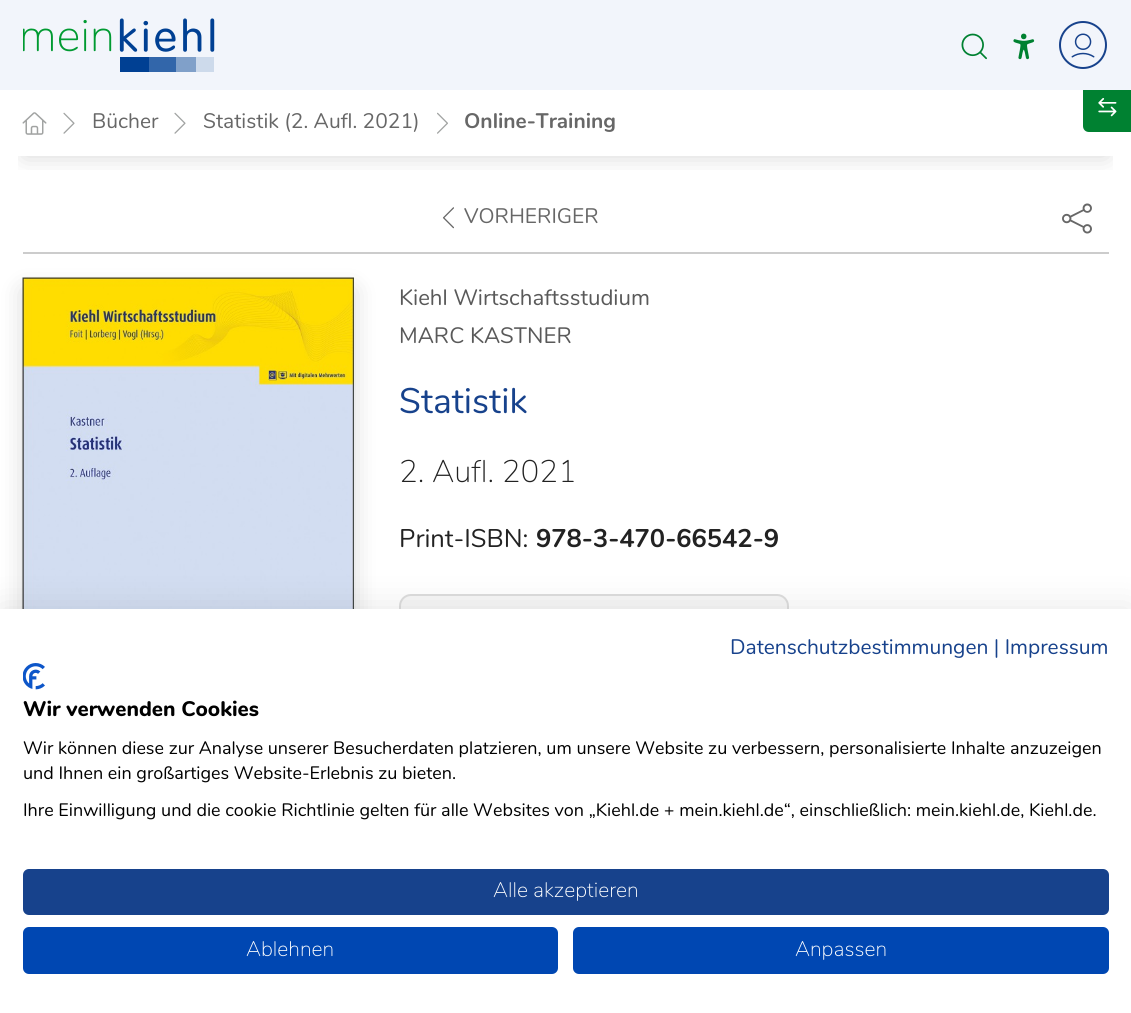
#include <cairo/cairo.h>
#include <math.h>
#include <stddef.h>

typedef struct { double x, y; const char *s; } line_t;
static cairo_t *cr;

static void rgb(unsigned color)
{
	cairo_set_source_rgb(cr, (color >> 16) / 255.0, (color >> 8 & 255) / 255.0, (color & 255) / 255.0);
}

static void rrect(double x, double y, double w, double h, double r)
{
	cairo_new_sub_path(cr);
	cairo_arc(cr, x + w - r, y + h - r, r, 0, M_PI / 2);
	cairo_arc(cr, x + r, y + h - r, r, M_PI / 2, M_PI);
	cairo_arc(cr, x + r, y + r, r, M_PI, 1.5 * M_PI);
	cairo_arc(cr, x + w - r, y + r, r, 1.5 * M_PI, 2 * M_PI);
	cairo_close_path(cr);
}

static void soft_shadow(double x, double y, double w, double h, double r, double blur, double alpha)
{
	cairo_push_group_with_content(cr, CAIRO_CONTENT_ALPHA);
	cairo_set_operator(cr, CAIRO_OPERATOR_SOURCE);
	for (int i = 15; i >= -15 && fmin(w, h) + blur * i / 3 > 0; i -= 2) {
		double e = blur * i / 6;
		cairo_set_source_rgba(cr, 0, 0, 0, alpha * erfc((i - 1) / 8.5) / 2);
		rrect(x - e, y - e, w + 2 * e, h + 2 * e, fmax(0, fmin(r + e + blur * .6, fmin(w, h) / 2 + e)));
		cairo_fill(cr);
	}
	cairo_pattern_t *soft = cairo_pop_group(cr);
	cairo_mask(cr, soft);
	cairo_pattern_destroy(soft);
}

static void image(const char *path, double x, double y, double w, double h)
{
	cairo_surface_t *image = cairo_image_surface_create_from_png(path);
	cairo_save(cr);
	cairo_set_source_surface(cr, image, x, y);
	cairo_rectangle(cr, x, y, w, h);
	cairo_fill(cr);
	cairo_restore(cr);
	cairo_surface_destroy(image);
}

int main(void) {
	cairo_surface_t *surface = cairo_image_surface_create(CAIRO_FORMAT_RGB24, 1131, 1013);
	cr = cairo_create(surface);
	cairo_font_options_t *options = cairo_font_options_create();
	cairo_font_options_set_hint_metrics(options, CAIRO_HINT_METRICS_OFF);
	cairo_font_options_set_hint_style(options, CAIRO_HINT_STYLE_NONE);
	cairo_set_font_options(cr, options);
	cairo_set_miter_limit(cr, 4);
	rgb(0xffffff);
	cairo_paint(cr);
	cairo_save(cr);
	cairo_rectangle(cr, 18, 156, 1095, 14);
	cairo_clip(cr);
	rgb(0x000000);
	soft_shadow(24, 138, 1083, 18, 0, 12, 0.16);
	cairo_restore(cr);
	rgb(0x008131);
	cairo_new_path(cr);
	cairo_move_to(cr, 1089, 84);
	cairo_line_to(cr, 1131, 84);
	cairo_line_to(cr, 1131, 132);
	cairo_line_to(cr, 1089, 132);
	cairo_curve_to(cr, 1085.5, 132, 1083, 129.5, 1083, 126);
	cairo_line_to(cr, 1083, 90);
	cairo_curve_to(cr, 1083, 86.5, 1085.5, 84, 1089, 84);
	cairo_close_path(cr);
	cairo_fill(cr);
	rgb(0xf2f5fb);
	cairo_rectangle(cr, 0, 0, 1131, 90);
	cairo_fill(cr);
	image("img/1.png", 23, 18, 192, 54);
	image("img/2.png", 961, 33, 26, 27);
	image("img/3.png", 1013, 33, 22, 27);
	cairo_arc(cr, 1083, 45, 23, 0, 2 * M_PI);
	rgb(0x17428c);
	cairo_stroke(cr);
	image("img/4.png", 1071, 33, 24, 25);
	image("img/5.png", 22, 112, 25, 23);
	image("img/6.png", 63, 112, 12, 22);
	image("img/6.png", 174, 112, 12, 22);
	image("img/7.png", 437, 112, 11, 22);
	image("img/8.png", 1098, 98, 19, 19);
	rgb(0x000000);
	soft_shadow(23, 290, 331, 474, 0, 12, 0.15);
	rgb(0xcccccc);
	cairo_rectangle(cr, 23, 252, 1086, 2);
	cairo_fill(cr);
	image("img/9.png", 442, 207, 12, 22);
	image("img/10.png", 1062, 203, 30, 31);
	image("img/11.png", 22, 277, 332, 332);
	rgb(0xf7f7f7);
	rrect(400, 595, 388, 64, 11);
	cairo_fill_preserve(cr);
	rgb(0xdddddd);
	cairo_stroke(cr);
	rgb(0x000000);
	soft_shadow(0, 609, 1131, 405, 0, 18, 0.1);
	rgb(0xffffff);
	cairo_rectangle(cr, 0, 609, 1131, 404);
	cairo_fill(cr);
	image("img/12.png", 23, 663, 22, 27);
	rgb(0x17428c);
	rrect(24, 870, 1084, 44, 5);
	cairo_fill_preserve(cr);
	cairo_stroke(cr);
	rgb(0x0047b2);
	rrect(24, 928, 533, 45, 5);
	cairo_fill_preserve(cr);
	cairo_stroke(cr);
	rrect(574, 928, 534, 45, 5);
	cairo_fill_preserve(cr);
	cairo_stroke(cr);
	cairo_select_font_face(cr, "Nunito", CAIRO_FONT_SLANT_NORMAL, CAIRO_FONT_WEIGHT_NORMAL);
	cairo_set_font_size(cr, 21);
	rgb(0x676767);
	cairo_move_to(cr, 92, 128);
	cairo_show_text(cr, "Bücher");
	cairo_move_to(cr, 203, 128);
	cairo_show_text(cr, "Statistik (2. Aufl. 2021)");
	cairo_select_font_face(cr, "Nunito", CAIRO_FONT_SLANT_NORMAL, CAIRO_FONT_WEIGHT_BOLD);
	cairo_move_to(cr, 464, 128);
	cairo_show_text(cr, "Online-Training");
	cairo_select_font_face(cr, "Nunito", CAIRO_FONT_SLANT_NORMAL, CAIRO_FONT_WEIGHT_NORMAL);
	cairo_move_to(cr, 464, 223);
	cairo_show_text(cr, "VORHERIGER");
	cairo_set_font_size(cr, 22.25);
	rgb(0x595959);
	cairo_move_to(cr, 399, 305);
	cairo_show_text(cr, "Kiehl Wirtschaftsstudium");
	cairo_move_to(cr, 399, 343);
	cairo_show_text(cr, "MARC KASTNER");
	cairo_set_font_size(cr, 35.5);
	rgb(0x17428c);
	cairo_move_to(cr, 399, 413);
	cairo_show_text(cr, "Statistik");
	cairo_select_font_face(cr, "Nunito ExtraLight", CAIRO_FONT_SLANT_NORMAL, CAIRO_FONT_WEIGHT_NORMAL);
	cairo_set_font_size(cr, 31.25);
	rgb(0x222222);
	cairo_move_to(cr, 399, 482);
	cairo_show_text(cr, "2. Aufl. 2021");
	cairo_select_font_face(cr, "Nunito", CAIRO_FONT_SLANT_NORMAL, CAIRO_FONT_WEIGHT_NORMAL);
	cairo_set_font_size(cr, 25.5);
	cairo_move_to(cr, 399, 547);
	cairo_show_text(cr, "Print-ISBN:");
	cairo_select_font_face(cr, "Nunito", CAIRO_FONT_SLANT_NORMAL, CAIRO_FONT_WEIGHT_BOLD);
	cairo_move_to(cr, 536, 547);
	cairo_show_text(cr, "978-3-470-66542-9");
	cairo_select_font_face(cr, "Nunito", CAIRO_FONT_SLANT_NORMAL, CAIRO_FONT_WEIGHT_NORMAL);
	cairo_set_font_size(cr, 21);
	rgb(0x17428c);
	cairo_move_to(cr, 730, 654);
	cairo_show_text(cr, "Datenschutzbestimmungen | Impressum");
	cairo_select_font_face(cr, "Nunito ExtraBold", CAIRO_FONT_SLANT_NORMAL, CAIRO_FONT_WEIGHT_NORMAL);
	rgb(0x000000);
	cairo_move_to(cr, 23, 716);
	cairo_show_text(cr, "Wir verwenden Cookies");
	cairo_select_font_face(cr, "Nunito", CAIRO_FONT_SLANT_NORMAL, CAIRO_FONT_WEIGHT_NORMAL);
	cairo_set_font_size(cr, 18);
	{
		static const line_t items[] = {
			{23, 754, "Wir können diese zur Analyse unserer Besucherdaten platzieren, um unsere Website zu verbessern, personalisierte Inhalte anzuzeigen"},
			{23, 779, "und Ihnen ein großartiges Website-Erlebnis zu bieten."},
			{23, 816, "Ihre Einwilligung und die cookie Richtlinie gelten für alle Websites von „Kiehl.de + mein.kiehl.de“, einschließlich: mein.kiehl.de, Kiehl.de."},
		};
		for (size_t i = 0; i < sizeof items / sizeof *items; i++) {
			cairo_move_to(cr, items[i].x, items[i].y);
			cairo_show_text(cr, items[i].s);
		}
	}
	cairo_select_font_face(cr, "Nunito ExtraLight", CAIRO_FONT_SLANT_NORMAL, CAIRO_FONT_WEIGHT_NORMAL);
	cairo_set_font_size(cr, 21);
	rgb(0xffffff);
	{
		static const line_t items[] = {
			{493, 897, "Alle akzeptieren"},
			{246, 956, "Ablehnen"},
			{795, 956, "Anpassen"},
		};
		for (size_t i = 0; i < sizeof items / sizeof *items; i++) {
			cairo_move_to(cr, items[i].x, items[i].y);
			cairo_show_text(cr, items[i].s);
		}
	}
	cairo_surface_write_to_png(surface, "page.png");
	cairo_font_options_destroy(options);
	cairo_destroy(cr);
	cairo_surface_destroy(surface);
	return 0;
}
